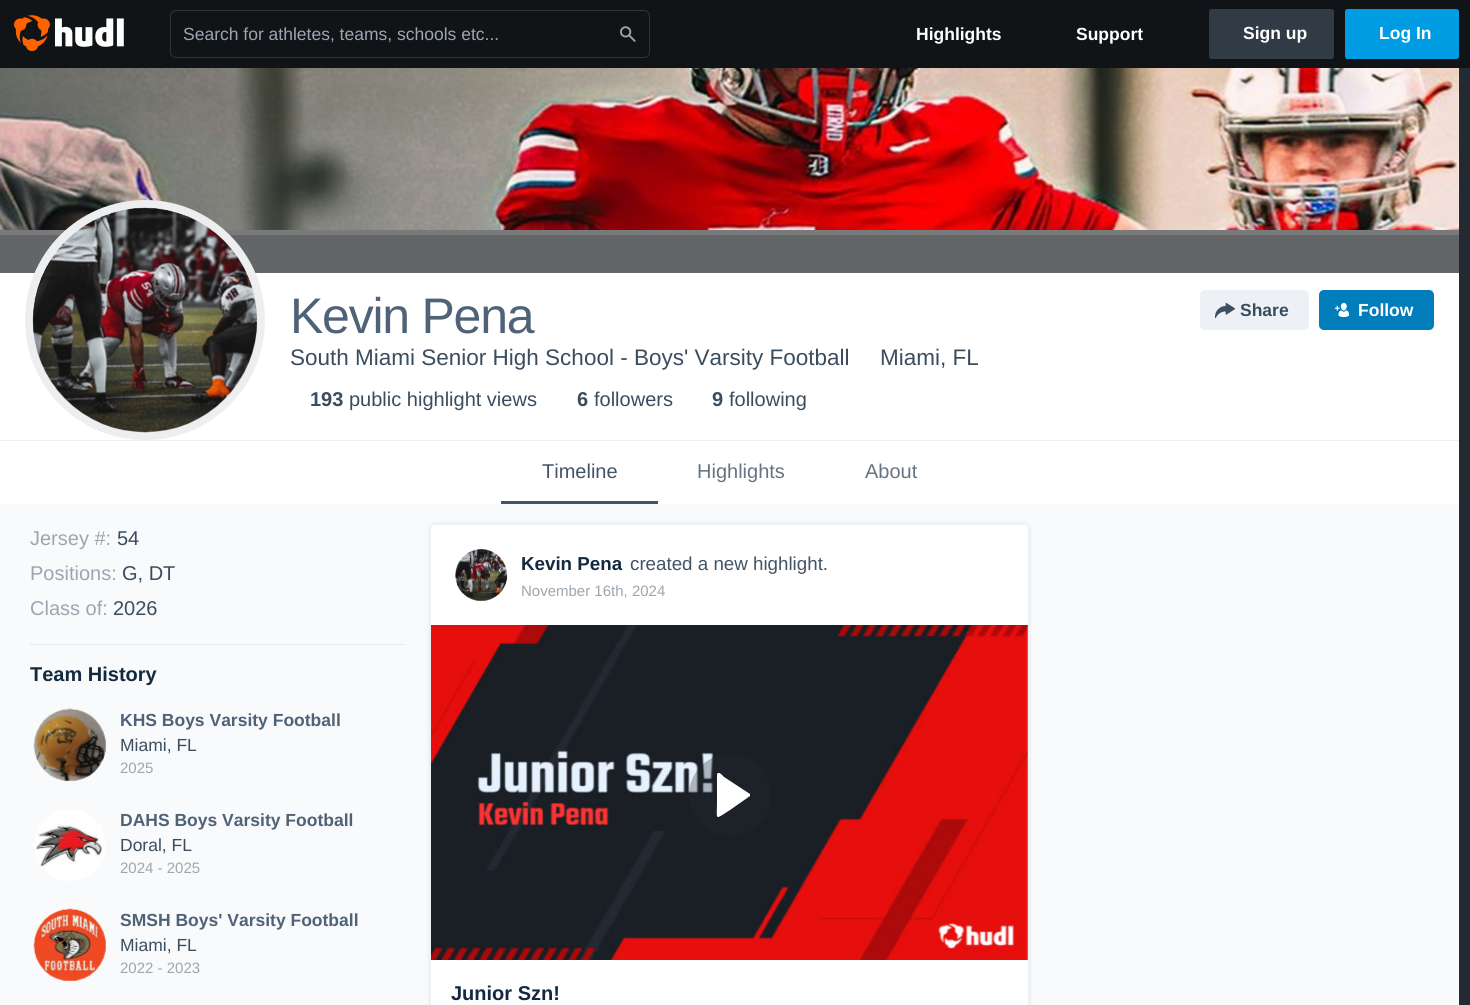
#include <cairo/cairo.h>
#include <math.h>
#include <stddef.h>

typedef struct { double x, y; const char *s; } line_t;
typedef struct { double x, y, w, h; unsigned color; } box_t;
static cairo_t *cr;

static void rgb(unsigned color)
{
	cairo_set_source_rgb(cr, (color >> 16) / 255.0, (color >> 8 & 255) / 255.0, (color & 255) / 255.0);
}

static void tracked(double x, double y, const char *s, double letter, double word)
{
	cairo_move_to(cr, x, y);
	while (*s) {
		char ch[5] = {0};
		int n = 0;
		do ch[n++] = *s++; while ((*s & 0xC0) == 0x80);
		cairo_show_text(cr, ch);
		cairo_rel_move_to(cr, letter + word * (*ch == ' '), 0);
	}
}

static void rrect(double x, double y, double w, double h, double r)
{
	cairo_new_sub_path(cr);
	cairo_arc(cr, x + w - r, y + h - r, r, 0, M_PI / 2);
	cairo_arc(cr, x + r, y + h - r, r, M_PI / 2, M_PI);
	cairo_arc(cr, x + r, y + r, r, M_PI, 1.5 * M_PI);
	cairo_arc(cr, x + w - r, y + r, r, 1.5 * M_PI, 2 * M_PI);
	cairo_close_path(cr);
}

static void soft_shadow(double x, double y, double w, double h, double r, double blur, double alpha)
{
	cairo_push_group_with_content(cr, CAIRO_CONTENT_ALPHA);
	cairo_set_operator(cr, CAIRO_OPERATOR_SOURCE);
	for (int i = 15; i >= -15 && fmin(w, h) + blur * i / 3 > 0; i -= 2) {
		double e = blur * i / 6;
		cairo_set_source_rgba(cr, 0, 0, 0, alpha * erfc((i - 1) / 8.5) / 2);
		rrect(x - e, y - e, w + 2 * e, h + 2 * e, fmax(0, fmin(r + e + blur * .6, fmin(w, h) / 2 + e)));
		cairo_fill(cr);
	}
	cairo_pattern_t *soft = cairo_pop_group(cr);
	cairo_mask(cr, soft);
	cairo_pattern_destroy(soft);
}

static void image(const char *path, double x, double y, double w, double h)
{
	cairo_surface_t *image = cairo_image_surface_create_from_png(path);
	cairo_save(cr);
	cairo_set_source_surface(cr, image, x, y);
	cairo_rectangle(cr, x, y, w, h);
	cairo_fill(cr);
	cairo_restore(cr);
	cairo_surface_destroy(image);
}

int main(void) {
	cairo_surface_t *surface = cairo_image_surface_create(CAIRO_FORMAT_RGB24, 1470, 1005);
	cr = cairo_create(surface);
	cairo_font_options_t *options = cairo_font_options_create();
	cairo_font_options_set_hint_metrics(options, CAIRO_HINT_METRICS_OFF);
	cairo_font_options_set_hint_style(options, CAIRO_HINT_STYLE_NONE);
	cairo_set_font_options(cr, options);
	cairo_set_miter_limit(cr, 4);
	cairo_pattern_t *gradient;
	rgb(0x232a31);
	cairo_paint(cr);
	rgb(0x101417);
	cairo_rectangle(cr, 0, 0, 1470, 68);
	cairo_fill(cr);
	image("img/1.png", 14, 15, 110, 37);
	rrect(170.5, 10.5, 479, 47, 5.5);
	rgb(0x2c353e);
	cairo_set_line_width(cr, 1);
	cairo_stroke(cr);
	image("img/2.png", 620, 26, 16, 16);
	rgb(0x313b45);
	rrect(1211, 11, 121, 46, 0.5);
	cairo_fill_preserve(cr);
	cairo_set_line_width(cr, 4);
	cairo_stroke(cr);
	rgb(0x009ce3);
	rrect(1347, 11, 110, 46, 0.5);
	cairo_fill_preserve(cr);
	cairo_stroke(cr);
	image("img/3.png", 0, 68, 1459, 162);
	gradient = cairo_pattern_create_linear(729, 230, 729, 440);
	cairo_pattern_add_color_stop_rgba(gradient, 0, 1, 1, 1, 0.85);
	cairo_pattern_add_color_stop_rgba(gradient, 0.2, 1, 1, 1, 1);
	cairo_set_source(cr, gradient);
	cairo_pattern_destroy(gradient);
	cairo_rectangle(cr, 0, 273, 1459, 167);
	cairo_fill(cr);
	{
		static const box_t items[] = {
			{0, 440, 1459, 1, 0xedf0f2},
			{0, 230, 1459, 5, 0x797a7c},
			{0, 235, 1459, 38, 0x646566},
		};
		for (size_t i = 0; i < sizeof items / sizeof *items; i++) {
			rgb(items[i].color);
			cairo_rectangle(cr, items[i].x, items[i].y, items[i].w, items[i].h);
			cairo_fill(cr);
		}
	}
	rgb(0xffffff);
	cairo_arc(cr, 145, 320, 120, 0, 2 * M_PI);
	cairo_fill(cr);
	cairo_arc(cr, 145, 320, 116, 0, 2 * M_PI);
	cairo_set_source_rgba(cr, 0.271, 0.322, 0.369, 0.1);
	cairo_set_line_width(cr, 8);
	cairo_stroke(cr);
	image("img/4.png", 32, 207, 226, 226);
	rgb(0xedf1f5);
	rrect(1200, 290, 109, 40, 5);
	cairo_fill(cr);
	image("img/5.png", 1215, 302, 20, 17);
	rgb(0x027dbb);
	rrect(1319, 290, 115, 40, 5);
	cairo_fill(cr);
	image("img/6.png", 1334, 303, 15, 15);
	{
		static const box_t items[] = {
			{0, 441, 1459, 63, 0xffffff},
			{501, 501, 157, 3, 0x425465},
			{0, 504, 1459, 501, 0xf9fafb},
			{30, 644, 375, 1, 0xe4e7eb},
		};
		for (size_t i = 0; i < sizeof items / sizeof *items; i++) {
			rgb(items[i].color);
			cairo_rectangle(cr, items[i].x, items[i].y, items[i].w, items[i].h);
			cairo_fill(cr);
		}
	}
	image("img/7.png", 33, 708, 74, 74);
	image("img/8.png", 34, 809, 71, 72);
	image("img/9.png", 33, 908, 74, 74);
	rgb(0x000000);
	soft_shadow(430, 524, 599, 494, 5, 2.5, 0.1);
	rgb(0xffffff);
	cairo_new_path(cr);
	cairo_move_to(cr, 435, 524);
	cairo_line_to(cr, 1024, 524);
	cairo_curve_to(cr, 1027, 524, 1029, 526, 1029, 529);
	cairo_line_to(cr, 1029, 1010);
	cairo_line_to(cr, 430, 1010);
	cairo_line_to(cr, 430, 529);
	cairo_curve_to(cr, 430, 526, 432, 524, 435, 524);
	cairo_close_path(cr);
	cairo_fill(cr);
	rrect(430.5, 524.5, 598, 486, 4.5);
	rgb(0xedf0f2);
	cairo_set_line_width(cr, 1);
	cairo_stroke(cr);
	image("img/10.png", 455, 548, 53, 54);
	image("img/11.png", 431, 625, 597, 335);
	cairo_set_source_rgba(cr, 0.137, 0.165, 0.192, 0.3);
	cairo_arc(cr, 730, 795, 41, 0, 2 * M_PI);
	cairo_fill(cr);
	rgb(0xffffff);
	cairo_set_fill_rule(cr, CAIRO_FILL_RULE_EVEN_ODD);
	cairo_new_path(cr);
	cairo_move_to(cr, 717, 774);
	cairo_line_to(cr, 717, 802);
	cairo_curve_to(cr, 717, 821, 714, 820, 730, 810);
	cairo_line_to(cr, 750, 796);
	cairo_line_to(cr, 750, 794);
	cairo_line_to(cr, 724, 777);
	cairo_curve_to(cr, 722, 775, 719, 771, 717, 774);
	cairo_close_path(cr);
	cairo_fill(cr);
	cairo_select_font_face(cr, "Liberation Sans", CAIRO_FONT_SLANT_NORMAL, CAIRO_FONT_WEIGHT_NORMAL);
	cairo_set_font_size(cr, 17.5);
	rgb(0x9da6b0);
	cairo_move_to(cr, 183, 40);
	cairo_show_text(cr, "Search for athletes, teams, schools etc...");
	cairo_select_font_face(cr, "Liberation Sans", CAIRO_FONT_SLANT_NORMAL, CAIRO_FONT_WEIGHT_BOLD);
	rgb(0xffffff);
	{
		static const line_t items[] = {
			{916, 40, "Highlights"},
			{1076, 40, "Support"},
			{1243, 39, "Sign up"},
			{1379, 39, "Log In"},
		};
		for (size_t i = 0; i < sizeof items / sizeof *items; i++) {
			cairo_move_to(cr, items[i].x, items[i].y);
			cairo_show_text(cr, items[i].s);
		}
	}
	cairo_select_font_face(cr, "Liberation Sans", CAIRO_FONT_SLANT_NORMAL, CAIRO_FONT_WEIGHT_NORMAL);
	cairo_set_font_size(cr, 50);
	rgb(0x506277);
	tracked(290, 333, "Kevin Pena", -1.25, 0);
	cairo_select_font_face(cr, "Liberation Sans", CAIRO_FONT_SLANT_NORMAL, CAIRO_FONT_WEIGHT_BOLD);
	cairo_set_font_size(cr, 17.5);
	rgb(0x3a4d5f);
	cairo_move_to(cr, 1240, 316);
	cairo_show_text(cr, "Share");
	rgb(0xffffff);
	cairo_move_to(cr, 1358, 316);
	cairo_show_text(cr, "Follow");
	cairo_select_font_face(cr, "Liberation Sans", CAIRO_FONT_SLANT_NORMAL, CAIRO_FONT_WEIGHT_NORMAL);
	cairo_set_font_size(cr, 22.5);
	rgb(0x3a4d5f);
	cairo_move_to(cr, 290, 365);
	cairo_show_text(cr, "South Miami Senior High School - Boys' Varsity Football");
	cairo_move_to(cr, 880, 365);
	cairo_show_text(cr, "Miami, FL");
	cairo_select_font_face(cr, "Liberation Sans", CAIRO_FONT_SLANT_NORMAL, CAIRO_FONT_WEIGHT_BOLD);
	cairo_set_font_size(cr, 20);
	cairo_move_to(cr, 310, 406);
	cairo_show_text(cr, "193");
	cairo_select_font_face(cr, "Liberation Sans", CAIRO_FONT_SLANT_NORMAL, CAIRO_FONT_WEIGHT_NORMAL);
	cairo_move_to(cr, 349, 406);
	cairo_show_text(cr, "public highlight views");
	cairo_select_font_face(cr, "Liberation Sans", CAIRO_FONT_SLANT_NORMAL, CAIRO_FONT_WEIGHT_BOLD);
	cairo_move_to(cr, 577, 406);
	cairo_show_text(cr, "6");
	cairo_select_font_face(cr, "Liberation Sans", CAIRO_FONT_SLANT_NORMAL, CAIRO_FONT_WEIGHT_NORMAL);
	cairo_move_to(cr, 594, 406);
	cairo_show_text(cr, "followers");
	cairo_select_font_face(cr, "Liberation Sans", CAIRO_FONT_SLANT_NORMAL, CAIRO_FONT_WEIGHT_BOLD);
	cairo_move_to(cr, 712, 406);
	cairo_show_text(cr, "9");
	cairo_select_font_face(cr, "Liberation Sans", CAIRO_FONT_SLANT_NORMAL, CAIRO_FONT_WEIGHT_NORMAL);
	cairo_move_to(cr, 729, 406);
	cairo_show_text(cr, "following");
	rgb(0x425465);
	cairo_move_to(cr, 542, 478);
	cairo_show_text(cr, "Timeline");
	rgb(0x667482);
	cairo_move_to(cr, 697, 478);
	cairo_show_text(cr, "Highlights");
	cairo_move_to(cr, 865, 478);
	cairo_show_text(cr, "About");
	rgb(0x9da6b0);
	cairo_move_to(cr, 30, 545);
	cairo_show_text(cr, "Jersey #:");
	rgb(0x3a4d5f);
	cairo_move_to(cr, 117, 545);
	cairo_show_text(cr, "54");
	rgb(0x9da6b0);
	cairo_move_to(cr, 30, 580);
	cairo_show_text(cr, "Positions:");
	rgb(0x3a4d5f);
	cairo_move_to(cr, 122, 580);
	cairo_show_text(cr, "G, DT");
	rgb(0x9da6b0);
	cairo_move_to(cr, 30, 615);
	cairo_show_text(cr, "Class of:");
	rgb(0x3a4d5f);
	cairo_move_to(cr, 113, 615);
	cairo_show_text(cr, "2026");
	cairo_select_font_face(cr, "Liberation Sans", CAIRO_FONT_SLANT_NORMAL, CAIRO_FONT_WEIGHT_BOLD);
	rgb(0x13293f);
	cairo_move_to(cr, 30, 681);
	cairo_show_text(cr, "Team History");
	cairo_set_font_size(cr, 17.5);
	rgb(0x506277);
	cairo_move_to(cr, 120, 726);
	cairo_show_text(cr, "KHS Boys Varsity Football");
	cairo_select_font_face(cr, "Liberation Sans", CAIRO_FONT_SLANT_NORMAL, CAIRO_FONT_WEIGHT_NORMAL);
	rgb(0x3a4d5f);
	cairo_move_to(cr, 120, 751);
	cairo_show_text(cr, "Miami, FL");
	cairo_set_font_size(cr, 15);
	rgb(0x9da6b0);
	cairo_move_to(cr, 120, 773);
	cairo_show_text(cr, "2025");
	cairo_select_font_face(cr, "Liberation Sans", CAIRO_FONT_SLANT_NORMAL, CAIRO_FONT_WEIGHT_BOLD);
	cairo_set_font_size(cr, 17.5);
	rgb(0x506277);
	cairo_move_to(cr, 120, 826);
	cairo_show_text(cr, "DAHS Boys Varsity Football");
	cairo_select_font_face(cr, "Liberation Sans", CAIRO_FONT_SLANT_NORMAL, CAIRO_FONT_WEIGHT_NORMAL);
	rgb(0x3a4d5f);
	cairo_move_to(cr, 120, 851);
	cairo_show_text(cr, "Doral, FL");
	cairo_set_font_size(cr, 15);
	rgb(0x9da6b0);
	cairo_move_to(cr, 120, 873);
	cairo_show_text(cr, "2024 - 2025");
	cairo_select_font_face(cr, "Liberation Sans", CAIRO_FONT_SLANT_NORMAL, CAIRO_FONT_WEIGHT_BOLD);
	cairo_set_font_size(cr, 17.5);
	rgb(0x506277);
	cairo_move_to(cr, 120, 926);
	cairo_show_text(cr, "SMSH Boys' Varsity Football");
	cairo_select_font_face(cr, "Liberation Sans", CAIRO_FONT_SLANT_NORMAL, CAIRO_FONT_WEIGHT_NORMAL);
	rgb(0x3a4d5f);
	cairo_move_to(cr, 120, 951);
	cairo_show_text(cr, "Miami, FL");
	cairo_set_font_size(cr, 15);
	rgb(0x9da6b0);
	cairo_move_to(cr, 120, 973);
	cairo_show_text(cr, "2022 - 2023");
	cairo_select_font_face(cr, "Liberation Sans", CAIRO_FONT_SLANT_NORMAL, CAIRO_FONT_WEIGHT_BOLD);
	cairo_set_font_size(cr, 18.75);
	rgb(0x13293f);
	cairo_move_to(cr, 521, 570);
	cairo_show_text(cr, "Kevin Pena");
	cairo_select_font_face(cr, "Liberation Sans", CAIRO_FONT_SLANT_NORMAL, CAIRO_FONT_WEIGHT_NORMAL);
	rgb(0x425465);
	cairo_move_to(cr, 630, 570);
	cairo_show_text(cr, "created a new highlight.");
	cairo_set_font_size(cr, 15);
	rgb(0x9da6b0);
	cairo_move_to(cr, 521, 596);
	cairo_show_text(cr, "November 16th, 2024");
	cairo_select_font_face(cr, "Liberation Sans", CAIRO_FONT_SLANT_NORMAL, CAIRO_FONT_WEIGHT_BOLD);
	cairo_set_font_size(cr, 20);
	rgb(0x13293f);
	cairo_move_to(cr, 451, 1000);
	cairo_show_text(cr, "Junior Szn!");
	cairo_surface_write_to_png(surface, "page.png");
	cairo_font_options_destroy(options);
	cairo_destroy(cr);
	cairo_surface_destroy(surface);
	return 0;
}
